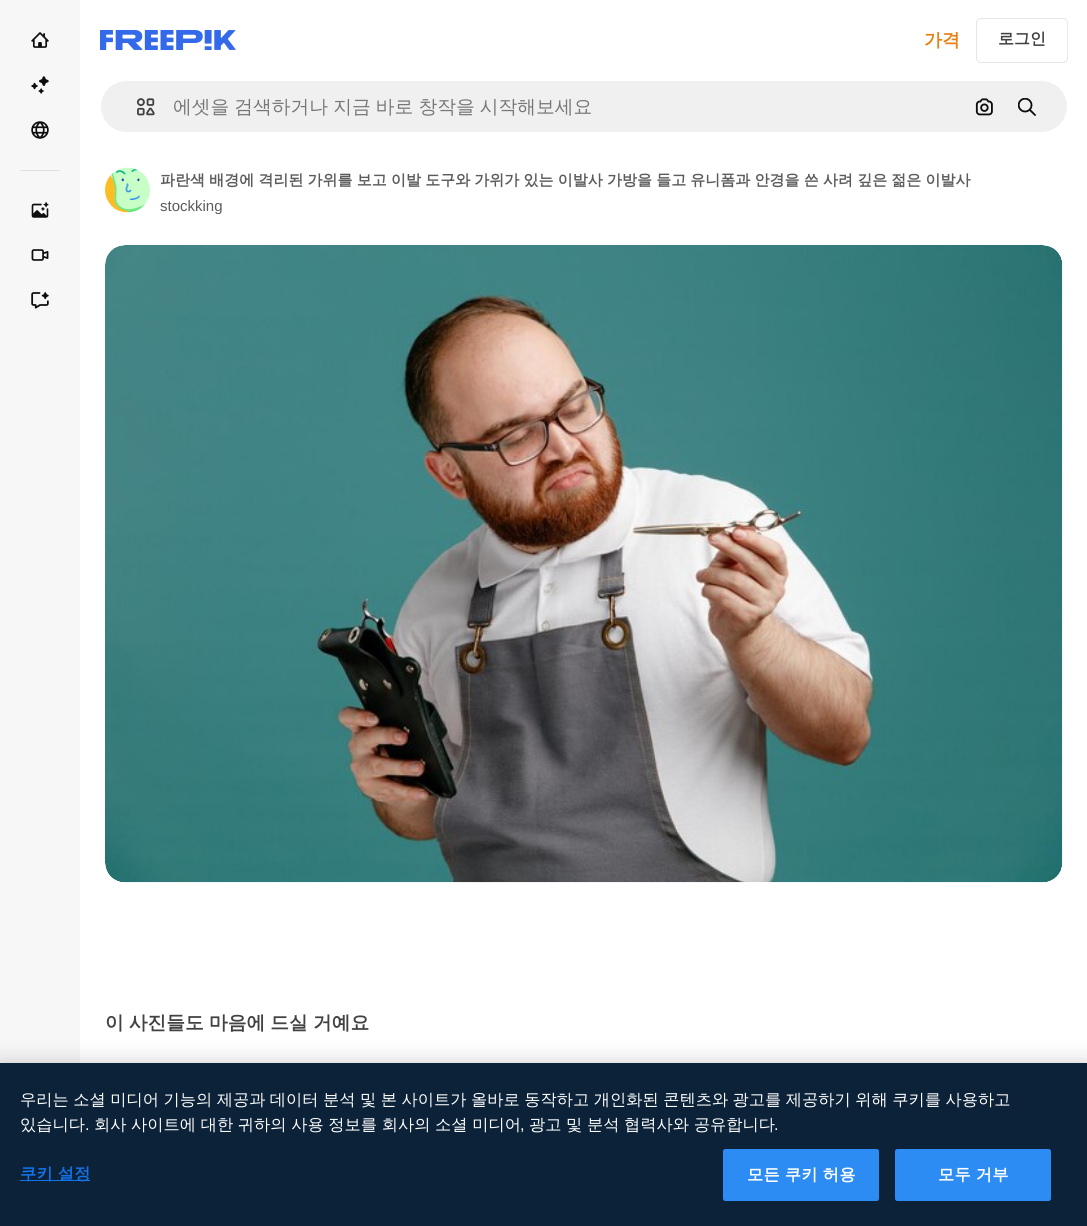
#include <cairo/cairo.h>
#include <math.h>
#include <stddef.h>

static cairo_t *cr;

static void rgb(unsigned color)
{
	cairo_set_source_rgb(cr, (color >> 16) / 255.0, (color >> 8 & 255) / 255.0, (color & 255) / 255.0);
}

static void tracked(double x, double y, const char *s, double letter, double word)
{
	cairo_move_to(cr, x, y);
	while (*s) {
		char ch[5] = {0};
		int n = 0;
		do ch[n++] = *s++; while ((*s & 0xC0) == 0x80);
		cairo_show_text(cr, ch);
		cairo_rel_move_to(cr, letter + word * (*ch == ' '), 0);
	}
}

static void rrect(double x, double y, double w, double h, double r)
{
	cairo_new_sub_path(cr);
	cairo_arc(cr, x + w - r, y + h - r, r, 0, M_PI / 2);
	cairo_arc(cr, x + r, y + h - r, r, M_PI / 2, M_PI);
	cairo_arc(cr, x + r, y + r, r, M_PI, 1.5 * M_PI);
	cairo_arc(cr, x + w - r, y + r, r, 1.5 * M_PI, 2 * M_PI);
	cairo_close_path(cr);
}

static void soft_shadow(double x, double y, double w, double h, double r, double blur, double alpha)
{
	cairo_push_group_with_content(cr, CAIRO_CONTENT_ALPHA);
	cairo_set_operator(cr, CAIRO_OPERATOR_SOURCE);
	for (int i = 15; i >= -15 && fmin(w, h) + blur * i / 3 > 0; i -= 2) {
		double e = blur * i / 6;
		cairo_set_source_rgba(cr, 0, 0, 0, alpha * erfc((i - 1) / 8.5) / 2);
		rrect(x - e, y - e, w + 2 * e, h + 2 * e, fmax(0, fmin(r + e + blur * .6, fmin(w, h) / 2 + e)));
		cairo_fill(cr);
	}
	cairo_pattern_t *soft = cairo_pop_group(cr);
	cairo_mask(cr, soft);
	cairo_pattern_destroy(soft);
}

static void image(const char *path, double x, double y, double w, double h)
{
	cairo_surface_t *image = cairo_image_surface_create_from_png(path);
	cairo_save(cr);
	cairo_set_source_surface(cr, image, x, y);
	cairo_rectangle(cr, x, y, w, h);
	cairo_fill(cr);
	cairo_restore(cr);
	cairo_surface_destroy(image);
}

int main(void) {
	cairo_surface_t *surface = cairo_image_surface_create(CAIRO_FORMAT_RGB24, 1087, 1226);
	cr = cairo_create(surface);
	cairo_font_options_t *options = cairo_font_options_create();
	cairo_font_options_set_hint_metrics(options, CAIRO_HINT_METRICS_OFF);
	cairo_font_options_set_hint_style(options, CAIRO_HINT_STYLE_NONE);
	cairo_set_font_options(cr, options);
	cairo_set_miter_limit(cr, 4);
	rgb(0xffffff);
	cairo_paint(cr);
	rgb(0xf7f7f7);
	cairo_rectangle(cr, 0, 0, 80, 1063);
	cairo_fill(cr);
	image("img/1.png", 31, 32, 18, 16);
	image("img/2.png", 31, 76, 18, 18);
	image("img/3.png", 31, 121, 18, 18);
	rgb(0xe0e0e0);
	cairo_rectangle(cr, 20, 170, 40, 1);
	cairo_fill(cr);
	image("img/4.png", 31, 202, 18, 16);
	image("img/5.png", 31, 249, 18, 12);
	image("img/6.png", 31, 292, 18, 17);
	image("img/7.png", 100, 30, 136, 20);
	rrect(976.5, 18.5, 91, 44, 4.5);
	rgb(0xe7e7e7);
	cairo_set_line_width(cr, 1);
	cairo_stroke(cr);
	rgb(0xf0f0f0);
	rrect(100.5, 80.5, 967, 52, 26);
	cairo_fill_preserve(cr);
	rgb(0xffffff);
	cairo_stroke(cr);
	image("img/8.png", 136, 98, 19, 18);
	image("img/9.png", 975, 98, 18, 18);
	image("img/10.png", 1018, 98, 18, 18);
	image("img/11.png", 105, 167, 45, 46);
	image("img/12.png", 105, 245, 958, 638);
	rgb(0x000000);
	soft_shadow(0, 1063, 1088, 163, 0, 11, 0.2);
	rgb(0x0b2239);
	cairo_rectangle(cr, 0, 1063, 1087, 163);
	cairo_fill(cr);
	rgb(0x1273eb);
	cairo_rectangle(cr, 20, 1180, 70, 1);
	cairo_fill(cr);
	rgb(0x2c8cf4);
	rrect(723.5, 1149.5, 155, 51, 2);
	cairo_fill_preserve(cr);
	cairo_stroke(cr);
	rrect(895.5, 1149.5, 155, 51, 2);
	cairo_fill_preserve(cr);
	cairo_stroke(cr);
	cairo_select_font_face(cr, "WenQuanYi Zen Hei", CAIRO_FONT_SLANT_NORMAL, CAIRO_FONT_WEIGHT_BOLD);
	cairo_set_font_size(cr, 18);
	rgb(0xea7e11);
	cairo_move_to(cr, 924, 46);
	cairo_show_text(cr, "가격");
	cairo_set_font_size(cr, 16);
	rgb(0x424242);
	cairo_move_to(cr, 998, 44);
	cairo_show_text(cr, "로그인");
	cairo_select_font_face(cr, "WenQuanYi Zen Hei Medium", CAIRO_FONT_SLANT_NORMAL, CAIRO_FONT_WEIGHT_NORMAL);
	cairo_set_font_size(cr, 18.75);
	rgb(0x777777);
	tracked(173, 113, "에셋을 검색하거나 지금 바로 창작을 시작해보세요", 0, -0.5);
	cairo_select_font_face(cr, "WenQuanYi Zen Hei", CAIRO_FONT_SLANT_NORMAL, CAIRO_FONT_WEIGHT_BOLD);
	cairo_set_font_size(cr, 15);
	rgb(0x5c5c5c);
	tracked(160, 185, "파란색 배경에 격리된 가위를 보고 이발 도구와 가위가 있는 이발사 가방을 들고 유니폼과 안경을 쓴 사려 깊은 젊은 이발사", 0, -0.3);
	cairo_select_font_face(cr, "Liberation Sans", CAIRO_FONT_SLANT_NORMAL, CAIRO_FONT_WEIGHT_NORMAL);
	cairo_move_to(cr, 160, 211);
	cairo_show_text(cr, "stockking");
	cairo_select_font_face(cr, "WenQuanYi Zen Hei", CAIRO_FONT_SLANT_NORMAL, CAIRO_FONT_WEIGHT_BOLD);
	cairo_set_font_size(cr, 18.75);
	rgb(0x424242);
	tracked(105, 1029, "이 사진들도 마음에 드실 거예요", 0, -0.5);
	cairo_select_font_face(cr, "WenQuanYi Zen Hei Medium", CAIRO_FONT_SLANT_NORMAL, CAIRO_FONT_WEIGHT_NORMAL);
	cairo_set_font_size(cr, 16.25);
	rgb(0xffffff);
	tracked(20, 1105, "우리는 소셜 미디어 기능의 제공과 데이터 분석 및 본 사이트가 올바로 동작하고 개인화된 콘텐츠와 광고를 제공하기 위해 쿠키를 사용하고", 0, -0.4);
	cairo_move_to(cr, 20, 1130);
	cairo_show_text(cr, "있습니다");
	cairo_select_font_face(cr, "Liberation Sans", CAIRO_FONT_SLANT_NORMAL, CAIRO_FONT_WEIGHT_NORMAL);
	cairo_move_to(cr, 85, 1130);
	cairo_show_text(cr, ".");
	cairo_select_font_face(cr, "WenQuanYi Zen Hei Medium", CAIRO_FONT_SLANT_NORMAL, CAIRO_FONT_WEIGHT_NORMAL);
	tracked(94, 1130, "회사 사이트에 대한 귀하의 사용 정보를 회사의 소셜 미디어", 0, -0.25);
	cairo_select_font_face(cr, "Liberation Sans", CAIRO_FONT_SLANT_NORMAL, CAIRO_FONT_WEIGHT_NORMAL);
	cairo_move_to(cr, 520, 1130);
	cairo_show_text(cr, ",");
	cairo_select_font_face(cr, "WenQuanYi Zen Hei Medium", CAIRO_FONT_SLANT_NORMAL, CAIRO_FONT_WEIGHT_NORMAL);
	tracked(529, 1130, "광고 및 분석 협력사와 공유합니다", 0, -0.25);
	cairo_select_font_face(cr, "Liberation Sans", CAIRO_FONT_SLANT_NORMAL, CAIRO_FONT_WEIGHT_NORMAL);
	cairo_move_to(cr, 774, 1130);
	cairo_show_text(cr, ".");
	cairo_select_font_face(cr, "WenQuanYi Zen Hei", CAIRO_FONT_SLANT_NORMAL, CAIRO_FONT_WEIGHT_BOLD);
	rgb(0x1273eb);
	tracked(20, 1179, "쿠키 설정", 0.25, -0.25);
	rgb(0xffffff);
	tracked(747, 1180, "모든 쿠키 허용", 0.25, -0.25);
	tracked(938, 1180, "모두 거부", 0.25, -0.25);
	cairo_surface_write_to_png(surface, "page.png");
	cairo_font_options_destroy(options);
	cairo_destroy(cr);
	cairo_surface_destroy(surface);
	return 0;
}
